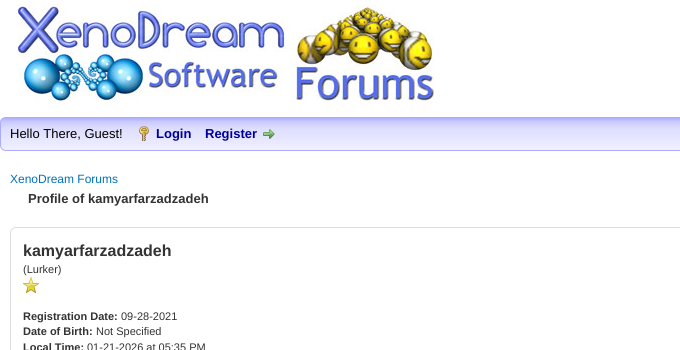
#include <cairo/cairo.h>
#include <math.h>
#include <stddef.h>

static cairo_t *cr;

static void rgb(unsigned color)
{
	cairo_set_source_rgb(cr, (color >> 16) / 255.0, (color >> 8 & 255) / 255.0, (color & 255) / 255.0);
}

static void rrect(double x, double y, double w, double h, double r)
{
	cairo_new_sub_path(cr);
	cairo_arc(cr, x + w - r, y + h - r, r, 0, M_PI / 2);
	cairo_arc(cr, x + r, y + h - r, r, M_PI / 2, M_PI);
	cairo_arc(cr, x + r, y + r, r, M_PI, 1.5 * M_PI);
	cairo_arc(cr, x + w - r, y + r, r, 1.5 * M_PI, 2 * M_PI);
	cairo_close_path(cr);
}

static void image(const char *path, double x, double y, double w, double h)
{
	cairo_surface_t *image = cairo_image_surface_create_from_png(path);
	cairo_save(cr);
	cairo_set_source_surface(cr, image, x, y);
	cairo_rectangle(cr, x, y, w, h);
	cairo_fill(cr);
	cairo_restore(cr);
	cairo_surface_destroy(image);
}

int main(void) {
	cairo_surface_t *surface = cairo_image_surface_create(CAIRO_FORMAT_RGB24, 680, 350);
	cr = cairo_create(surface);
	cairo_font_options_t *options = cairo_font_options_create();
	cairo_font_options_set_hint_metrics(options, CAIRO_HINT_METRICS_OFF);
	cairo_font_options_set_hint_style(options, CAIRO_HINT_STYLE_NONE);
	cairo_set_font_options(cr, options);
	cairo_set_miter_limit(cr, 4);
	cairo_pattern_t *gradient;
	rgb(0xffffff);
	cairo_paint(cr);
	image("img/1.png", 17, 4, 417, 100);
	cairo_save(cr);
	rrect(0, 117, 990, 34, 6);
	cairo_clip(cr);
	gradient = cairo_pattern_create_linear(495, 118, 495, 150);
	cairo_pattern_add_color_stop_rgba(gradient, 0, 0.675, 0.675, 1, 1);
	cairo_pattern_add_color_stop_rgba(gradient, 0.04, 0.725, 0.725, 1, 1);
	cairo_pattern_add_color_stop_rgba(gradient, 0.12, 0.792, 0.792, 1, 1);
	cairo_pattern_add_color_stop_rgba(gradient, 0.32, 0.867, 0.867, 1, 1);
	cairo_pattern_add_color_stop_rgba(gradient, 1, 0.941, 0.941, 1, 1);
	cairo_set_source(cr, gradient);
	cairo_pattern_destroy(gradient);
	cairo_rectangle(cr, 0, 118, 680, 32);
	cairo_fill(cr);
	cairo_restore(cr);
	rrect(0.5, 117.5, 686, 33, 5.5);
	rgb(0xacacff);
	cairo_set_line_width(cr, 1);
	cairo_stroke(cr);
	image("img/2.png", 139, 126, 10, 15);
	image("img/3.png", 263, 129, 12, 10);
	rrect(10.5, 227.5, 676, 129, 5.5);
	rgb(0xdddddd);
	cairo_stroke(cr);
	image("img/4.png", 23, 277, 16, 16);
	cairo_select_font_face(cr, "Liberation Sans", CAIRO_FONT_SLANT_NORMAL, CAIRO_FONT_WEIGHT_NORMAL);
	cairo_set_font_size(cr, 13);
	rgb(0x000000);
	cairo_move_to(cr, 10, 138);
	cairo_show_text(cr, "Hello There, Guest!");
	cairo_select_font_face(cr, "Liberation Sans", CAIRO_FONT_SLANT_NORMAL, CAIRO_FONT_WEIGHT_BOLD);
	rgb(0x000099);
	cairo_move_to(cr, 156, 138);
	cairo_show_text(cr, "Login");
	cairo_move_to(cr, 205, 138);
	cairo_show_text(cr, "Register");
	cairo_select_font_face(cr, "Liberation Sans", CAIRO_FONT_SLANT_NORMAL, CAIRO_FONT_WEIGHT_NORMAL);
	cairo_set_font_size(cr, 12);
	rgb(0x0072bc);
	cairo_move_to(cr, 10, 183);
	cairo_show_text(cr, "XenoDream Forums");
	cairo_select_font_face(cr, "Liberation Sans", CAIRO_FONT_SLANT_NORMAL, CAIRO_FONT_WEIGHT_BOLD);
	cairo_set_font_size(cr, 13);
	rgb(0x333333);
	cairo_move_to(cr, 28, 203);
	cairo_show_text(cr, "Profile of kamyarfarzadzadeh");
	cairo_set_font_size(cr, 16);
	cairo_move_to(cr, 23, 256);
	cairo_show_text(cr, "kamyarfarzadzadeh");
	cairo_select_font_face(cr, "Liberation Sans", CAIRO_FONT_SLANT_NORMAL, CAIRO_FONT_WEIGHT_NORMAL);
	cairo_set_font_size(cr, 11);
	cairo_move_to(cr, 23, 273);
	cairo_show_text(cr, "(Lurker)");
	cairo_select_font_face(cr, "Liberation Sans", CAIRO_FONT_SLANT_NORMAL, CAIRO_FONT_WEIGHT_BOLD);
	cairo_move_to(cr, 23, 320);
	cairo_show_text(cr, "Registration Date:");
	cairo_select_font_face(cr, "Liberation Sans", CAIRO_FONT_SLANT_NORMAL, CAIRO_FONT_WEIGHT_NORMAL);
	cairo_move_to(cr, 121, 320);
	cairo_show_text(cr, "09-28-2021");
	cairo_select_font_face(cr, "Liberation Sans", CAIRO_FONT_SLANT_NORMAL, CAIRO_FONT_WEIGHT_BOLD);
	cairo_move_to(cr, 23, 335);
	cairo_show_text(cr, "Date of Birth:");
	cairo_select_font_face(cr, "Liberation Sans", CAIRO_FONT_SLANT_NORMAL, CAIRO_FONT_WEIGHT_NORMAL);
	cairo_move_to(cr, 96, 335);
	cairo_show_text(cr, "Not Specified");
	cairo_select_font_face(cr, "Liberation Sans", CAIRO_FONT_SLANT_NORMAL, CAIRO_FONT_WEIGHT_BOLD);
	cairo_move_to(cr, 23, 351);
	cairo_show_text(cr, "Local Time:");
	cairo_select_font_face(cr, "Liberation Sans", CAIRO_FONT_SLANT_NORMAL, CAIRO_FONT_WEIGHT_NORMAL);
	cairo_move_to(cr, 87, 351);
	cairo_show_text(cr, "01-21-2026 at 05:35 PM");
	cairo_surface_write_to_png(surface, "page.png");
	cairo_font_options_destroy(options);
	cairo_destroy(cr);
	cairo_surface_destroy(surface);
	return 0;
}
